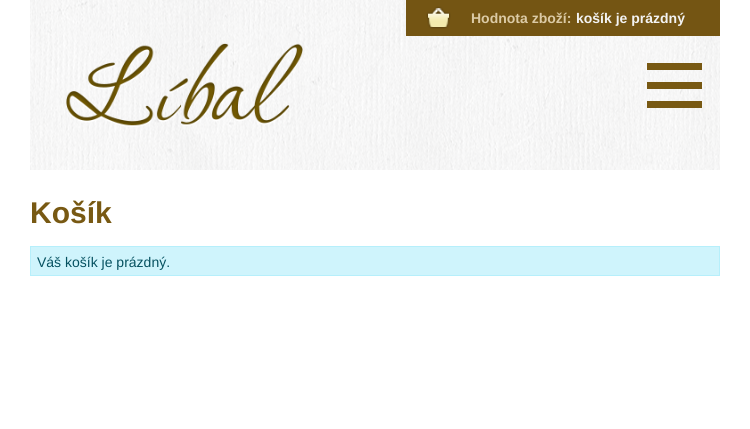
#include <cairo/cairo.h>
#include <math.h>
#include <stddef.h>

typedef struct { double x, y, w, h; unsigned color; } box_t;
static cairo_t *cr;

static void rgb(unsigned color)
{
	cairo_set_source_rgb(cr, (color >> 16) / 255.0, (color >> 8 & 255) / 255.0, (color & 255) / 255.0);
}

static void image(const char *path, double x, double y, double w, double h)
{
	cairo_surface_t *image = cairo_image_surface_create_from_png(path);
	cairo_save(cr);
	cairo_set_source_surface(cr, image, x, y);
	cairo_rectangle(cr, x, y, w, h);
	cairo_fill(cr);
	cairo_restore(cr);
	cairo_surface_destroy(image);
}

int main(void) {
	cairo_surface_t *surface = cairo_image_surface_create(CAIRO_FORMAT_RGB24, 750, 429);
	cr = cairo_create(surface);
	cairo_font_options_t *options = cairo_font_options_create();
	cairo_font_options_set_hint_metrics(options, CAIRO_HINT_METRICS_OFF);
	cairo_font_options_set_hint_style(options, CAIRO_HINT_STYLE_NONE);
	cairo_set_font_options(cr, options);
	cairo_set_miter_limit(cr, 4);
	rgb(0xffffff);
	cairo_paint(cr);
	image("img/1.png", 30, 0, 690, 170);
	rgb(0x745513);
	cairo_rectangle(cr, 406, 0, 314, 36);
	cairo_fill(cr);
	image("img/2.png", 426, 6, 25, 23);
	{
		static const box_t items[] = {
			{647, 63, 55, 7, 0x785913},
			{647, 82, 55, 7, 0x785913},
			{647, 101, 55, 7, 0x785913},
		};
		for (size_t i = 0; i < sizeof items / sizeof *items; i++) {
			rgb(items[i].color);
			cairo_rectangle(cr, items[i].x, items[i].y, items[i].w, items[i].h);
			cairo_fill(cr);
		}
	}
	image("img/3.png", 66, 43, 237, 84);
	rgb(0xcff4fc);
	cairo_rectangle(cr, 30.5, 246.5, 689, 29);
	cairo_fill_preserve(cr);
	rgb(0xb6effb);
	cairo_set_line_width(cr, 1);
	cairo_stroke(cr);
	cairo_select_font_face(cr, "Liberation Sans", CAIRO_FONT_SLANT_NORMAL, CAIRO_FONT_WEIGHT_BOLD);
	cairo_set_font_size(cr, 14);
	rgb(0xdbcaa5);
	cairo_move_to(cr, 471, 23);
	cairo_show_text(cr, "Hodnota zboží:");
	rgb(0xf3f3f3);
	cairo_move_to(cr, 576, 23);
	cairo_show_text(cr, "košík je prázdný");
	cairo_set_font_size(cr, 30);
	rgb(0x785913);
	cairo_move_to(cr, 30, 223);
	cairo_show_text(cr, "Košík");
	cairo_select_font_face(cr, "Liberation Sans", CAIRO_FONT_SLANT_NORMAL, CAIRO_FONT_WEIGHT_NORMAL);
	cairo_set_font_size(cr, 14);
	rgb(0x055160);
	cairo_move_to(cr, 37, 267);
	cairo_show_text(cr, "Váš košík je prázdný.");
	cairo_surface_write_to_png(surface, "page.png");
	cairo_font_options_destroy(options);
	cairo_destroy(cr);
	cairo_surface_destroy(surface);
	return 0;
}
